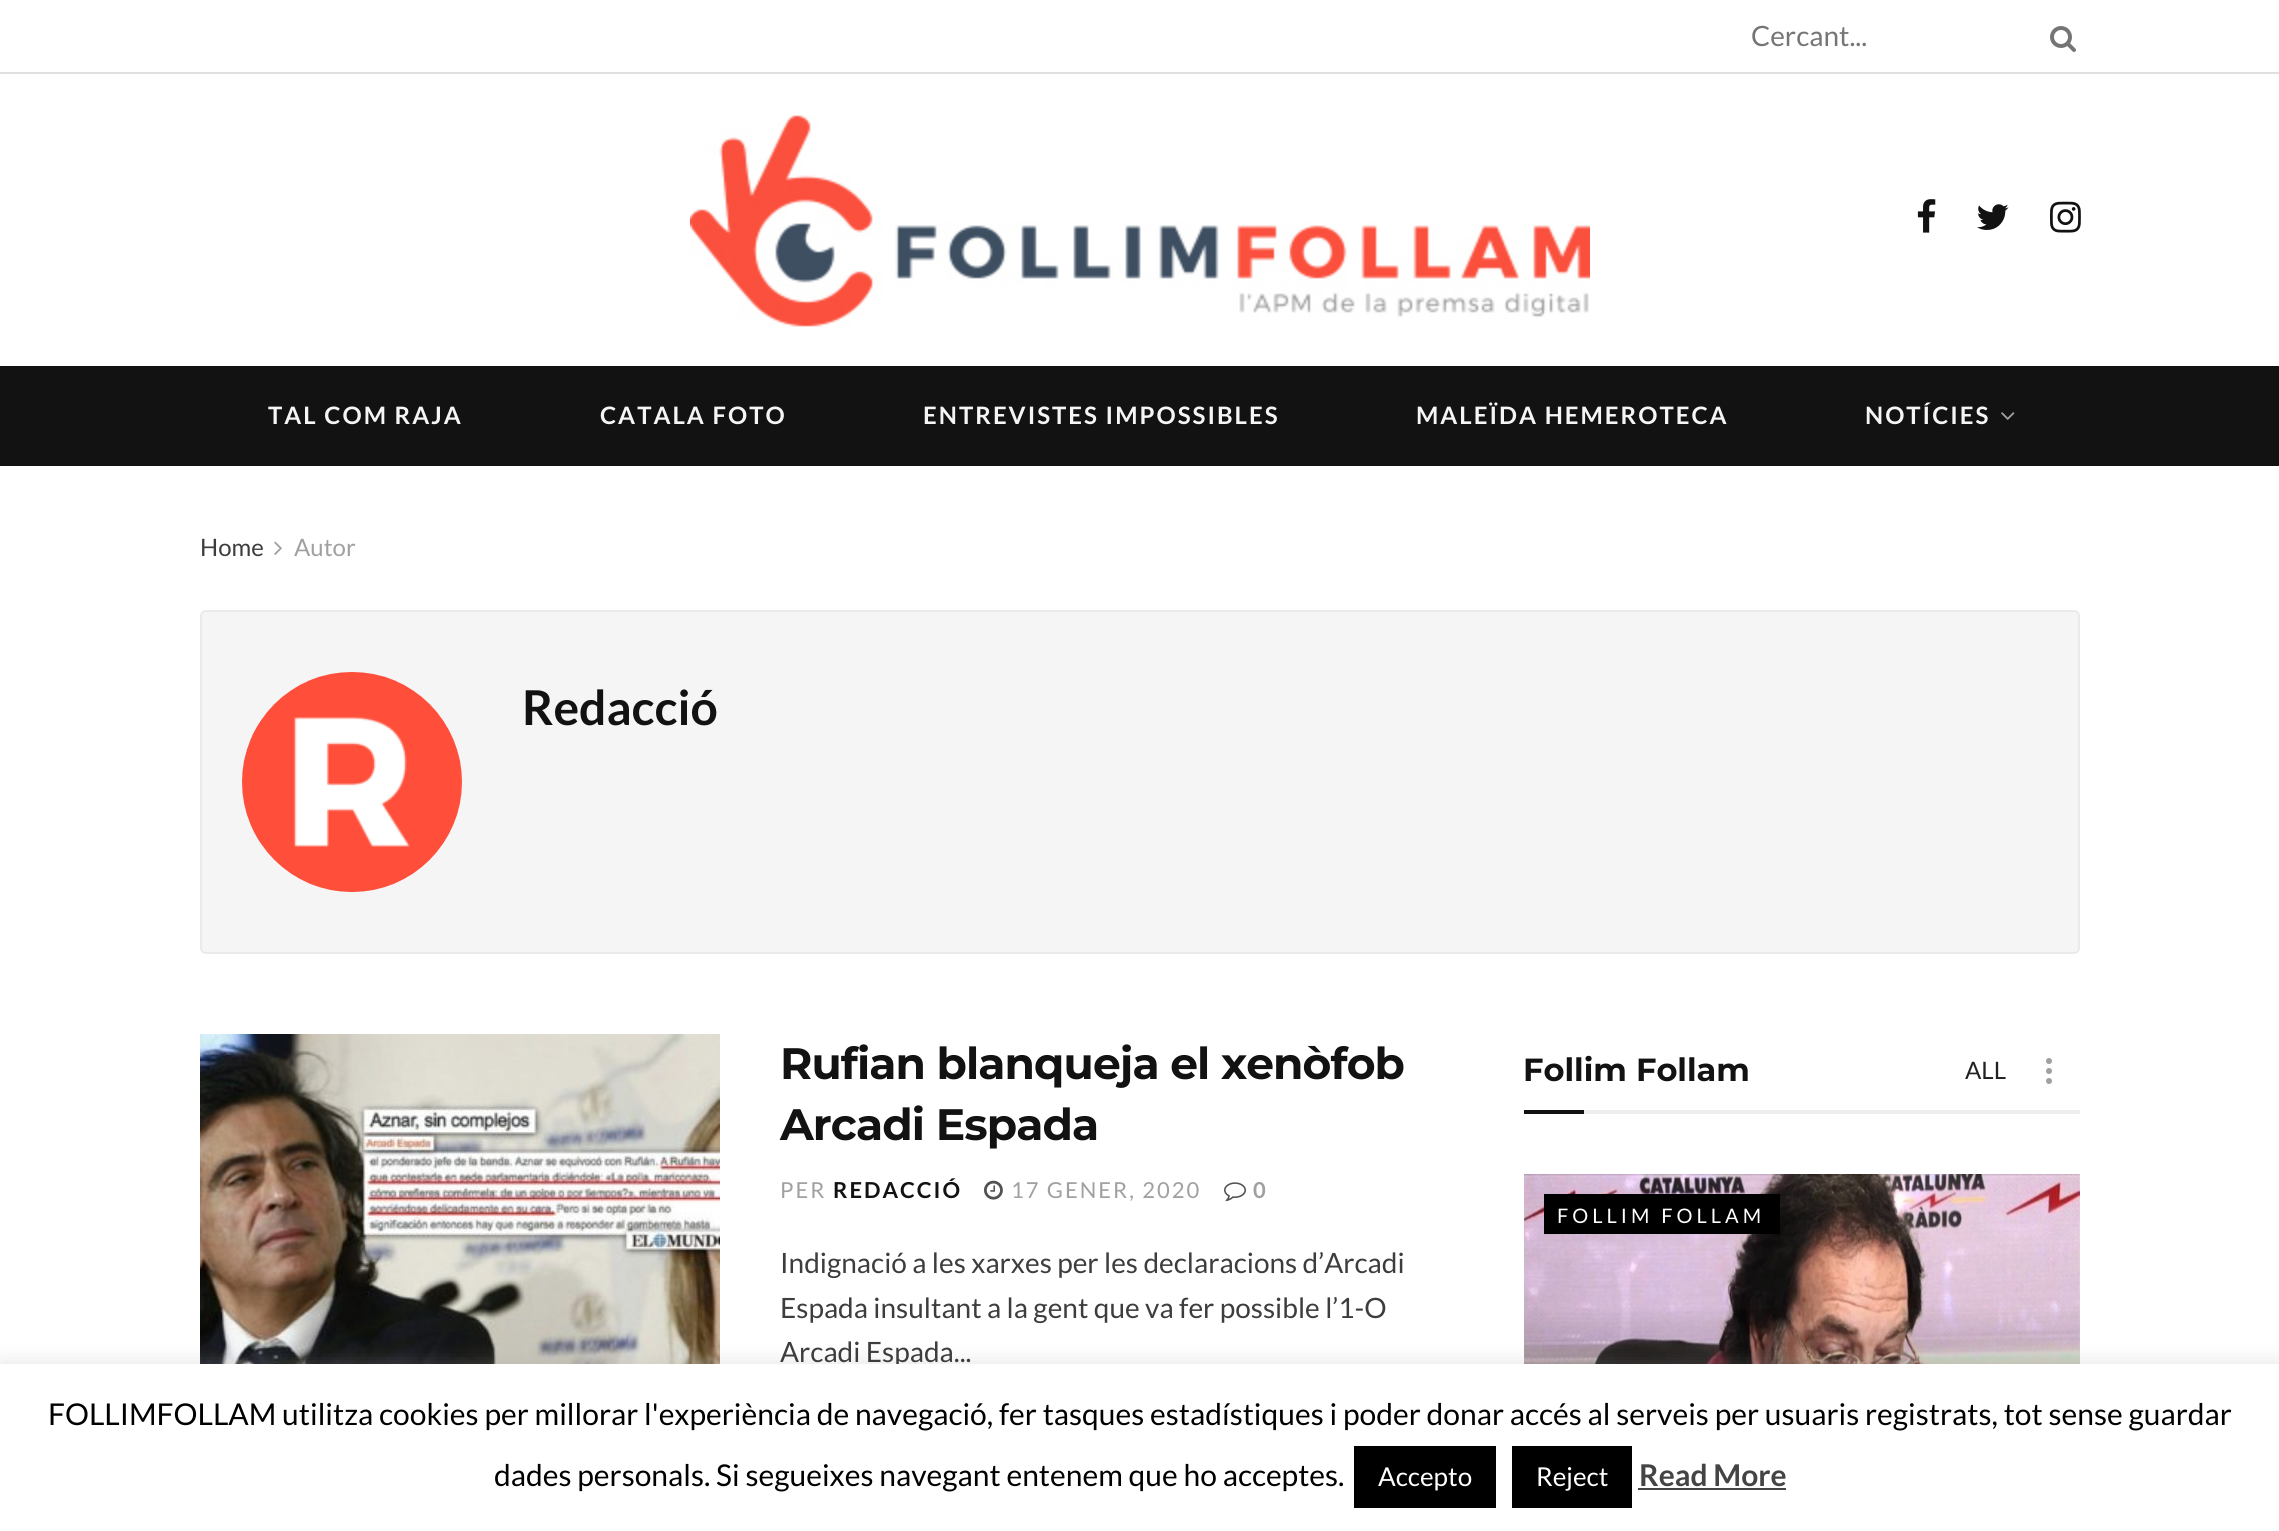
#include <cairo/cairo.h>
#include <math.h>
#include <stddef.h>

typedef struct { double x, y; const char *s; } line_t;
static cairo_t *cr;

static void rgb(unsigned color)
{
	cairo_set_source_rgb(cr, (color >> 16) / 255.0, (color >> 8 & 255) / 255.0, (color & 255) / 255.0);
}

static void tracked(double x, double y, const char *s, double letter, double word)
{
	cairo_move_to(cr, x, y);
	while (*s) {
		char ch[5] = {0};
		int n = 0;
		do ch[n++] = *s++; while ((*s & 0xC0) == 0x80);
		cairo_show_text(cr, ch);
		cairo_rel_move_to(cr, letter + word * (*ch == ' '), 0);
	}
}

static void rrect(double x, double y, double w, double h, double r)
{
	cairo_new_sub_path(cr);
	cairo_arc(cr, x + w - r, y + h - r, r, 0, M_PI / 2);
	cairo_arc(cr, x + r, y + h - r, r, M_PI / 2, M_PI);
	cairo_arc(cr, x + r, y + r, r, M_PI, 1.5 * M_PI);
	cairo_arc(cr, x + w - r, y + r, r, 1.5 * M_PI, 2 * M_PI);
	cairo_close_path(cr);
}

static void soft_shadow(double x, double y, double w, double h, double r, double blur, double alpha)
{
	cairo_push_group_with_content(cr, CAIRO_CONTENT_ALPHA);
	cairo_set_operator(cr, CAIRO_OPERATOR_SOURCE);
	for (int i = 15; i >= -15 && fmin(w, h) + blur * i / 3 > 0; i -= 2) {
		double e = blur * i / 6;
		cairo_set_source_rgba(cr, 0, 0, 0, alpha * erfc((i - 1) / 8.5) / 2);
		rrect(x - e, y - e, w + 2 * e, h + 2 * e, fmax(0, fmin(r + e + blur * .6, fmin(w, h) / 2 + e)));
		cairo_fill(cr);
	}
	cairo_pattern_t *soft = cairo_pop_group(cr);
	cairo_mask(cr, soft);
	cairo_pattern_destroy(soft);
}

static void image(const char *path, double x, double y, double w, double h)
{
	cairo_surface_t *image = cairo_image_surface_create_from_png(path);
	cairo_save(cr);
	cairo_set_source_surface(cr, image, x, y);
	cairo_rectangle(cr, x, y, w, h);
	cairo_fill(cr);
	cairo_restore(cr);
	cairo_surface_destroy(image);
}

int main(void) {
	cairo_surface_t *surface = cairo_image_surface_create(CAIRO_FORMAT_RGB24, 2279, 1531);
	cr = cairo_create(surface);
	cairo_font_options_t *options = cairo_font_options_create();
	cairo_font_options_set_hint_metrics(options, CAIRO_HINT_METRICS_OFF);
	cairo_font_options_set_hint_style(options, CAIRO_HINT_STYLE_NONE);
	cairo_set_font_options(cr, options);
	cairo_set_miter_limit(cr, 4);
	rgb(0xffffff);
	cairo_paint(cr);
	rgb(0xe0e0e0);
	cairo_rectangle(cr, 0, 72, 2279, 2);
	cairo_fill(cr);
	image("img/1.png", 2050, 26, 26, 26);
	image("img/2.png", 690, 115, 900, 212);
	image("img/3.png", 1917, 199, 19, 34);
	image("img/4.png", 1977, 204, 32, 26);
	image("img/5.png", 2050, 201, 31, 32);
	rgb(0x121212);
	cairo_rectangle(cr, 0, 366, 2279, 100);
	cairo_fill(cr);
	image("img/6.png", 2001, 412, 14, 8);
	image("img/7.png", 274, 541, 8, 14);
	rgb(0xf5f5f5);
	rrect(201, 611, 1878, 342, 5);
	cairo_fill_preserve(cr);
	rgb(0xeaeaea);
	cairo_stroke(cr);
	image("img/8.png", 242, 672, 220, 220);
	image("img/9.png", 200, 1034, 520, 330);
	image("img/10.png", 984, 1180, 19, 20);
	image("img/11.png", 1224, 1182, 22, 20);
	rgb(0xeeeeee);
	cairo_rectangle(cr, 1584, 1110, 496, 4);
	cairo_fill(cr);
	rgb(0xa0a0a0);
	cairo_arc(cr, 2049, 1061, 3, 0, 2 * M_PI);
	cairo_fill(cr);
	cairo_arc(cr, 2049, 1071, 3, 0, 2 * M_PI);
	cairo_fill(cr);
	cairo_arc(cr, 2049, 1081, 3, 0, 2 * M_PI);
	cairo_fill(cr);
	rgb(0x121212);
	cairo_rectangle(cr, 1524, 1110, 60, 4);
	cairo_fill(cr);
	image("img/12.png", 1524, 1174, 556, 190);
	rgb(0x000000);
	cairo_rectangle(cr, 1544, 1194, 236, 40);
	cairo_fill(cr);
	rgb(0xacabab);
	soft_shadow(0, 1362, 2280, 168, 0, 10, 0.3);
	cairo_select_font_face(cr, "Lato", CAIRO_FONT_SLANT_NORMAL, CAIRO_FONT_WEIGHT_NORMAL);
	cairo_set_font_size(cr, 28);
	rgb(0x757575);
	cairo_move_to(cr, 1751, 46);
	cairo_show_text(cr, "Cercant...");
	cairo_select_font_face(cr, "Lato", CAIRO_FONT_SLANT_NORMAL, CAIRO_FONT_WEIGHT_BOLD);
	cairo_set_font_size(cr, 24);
	rgb(0xf5f5f5);
	{
		static const line_t items[] = {
			{268, 424, "TAL COM RAJA"},
			{600, 424, "CATALA FOTO"},
			{923, 424, "ENTREVISTES IMPOSSIBLES"},
			{1416, 424, "MALEÏDA HEMEROTECA"},
			{1865, 424, "NOTÍCIES"},
		};
		for (size_t i = 0; i < sizeof items / sizeof *items; i++) {
			tracked(items[i].x, items[i].y, items[i].s, 2, 0);
		}
	}
	cairo_select_font_face(cr, "Lato", CAIRO_FONT_SLANT_NORMAL, CAIRO_FONT_WEIGHT_NORMAL);
	rgb(0x3d3d3d);
	cairo_move_to(cr, 200, 556);
	cairo_show_text(cr, "Home");
	rgb(0xa0a0a0);
	cairo_move_to(cr, 294, 556);
	cairo_show_text(cr, "Autor");
	cairo_select_font_face(cr, "Lato", CAIRO_FONT_SLANT_NORMAL, CAIRO_FONT_WEIGHT_BOLD);
	cairo_set_font_size(cr, 48);
	rgb(0x121212);
	cairo_move_to(cr, 522, 725);
	cairo_show_text(cr, "Redacció");
	cairo_select_font_face(cr, "Montserrat", CAIRO_FONT_SLANT_NORMAL, CAIRO_FONT_WEIGHT_BOLD);
	cairo_set_font_size(cr, 44);
	tracked(780, 1079, "Rufian blanqueja el xenòfob", -0.9, 0);
	tracked(780, 1140, "Arcadi Espada", -0.9, 0);
	cairo_select_font_face(cr, "Lato", CAIRO_FONT_SLANT_NORMAL, CAIRO_FONT_WEIGHT_NORMAL);
	cairo_set_font_size(cr, 22);
	rgb(0xa0a0a0);
	tracked(780, 1198, "PER", 2, 0);
	cairo_select_font_face(cr, "Lato", CAIRO_FONT_SLANT_NORMAL, CAIRO_FONT_WEIGHT_BOLD);
	rgb(0x121212);
	tracked(833, 1198, "REDACCIÓ", 2, 0);
	cairo_select_font_face(cr, "Lato", CAIRO_FONT_SLANT_NORMAL, CAIRO_FONT_WEIGHT_NORMAL);
	rgb(0xa0a0a0);
	tracked(1011, 1198, "17 GENER, 2020", 2, 0);
	cairo_select_font_face(cr, "Lato", CAIRO_FONT_SLANT_NORMAL, CAIRO_FONT_WEIGHT_BOLD);
	tracked(1253, 1198, "0", 2, 0);
	cairo_select_font_face(cr, "Lato", CAIRO_FONT_SLANT_NORMAL, CAIRO_FONT_WEIGHT_NORMAL);
	cairo_set_font_size(cr, 28);
	rgb(0x3d3d3d);
	{
		static const line_t items[] = {
			{780, 1273, "Indignació a les xarxes per les declaracions d’Arcadi"},
			{780, 1318, "Espada insultant a la gent que va fer possible l’1-O"},
			{780, 1362, "Arcadi Espada..."},
		};
		for (size_t i = 0; i < sizeof items / sizeof *items; i++) {
			cairo_move_to(cr, items[i].x, items[i].y);
			cairo_show_text(cr, items[i].s);
		}
	}
	cairo_select_font_face(cr, "Montserrat", CAIRO_FONT_SLANT_NORMAL, CAIRO_FONT_WEIGHT_BOLD);
	cairo_set_font_size(cr, 32);
	rgb(0x121212);
	cairo_move_to(cr, 1523, 1081);
	cairo_show_text(cr, "Follim Follam");
	cairo_select_font_face(cr, "Lato", CAIRO_FONT_SLANT_NORMAL, CAIRO_FONT_WEIGHT_NORMAL);
	cairo_set_font_size(cr, 24);
	rgb(0x212121);
	cairo_move_to(cr, 1965, 1079);
	cairo_show_text(cr, "ALL");
	cairo_set_font_size(cr, 20);
	rgb(0xffffff);
	tracked(1557, 1223, "FOLLIM FOLLAM", 4, 0);
	cairo_rectangle(cr, 0, 1364, 2279, 167);
	cairo_fill(cr);
	cairo_set_font_size(cr, 30);
	rgb(0x000000);
	cairo_move_to(cr, 48, 1425);
	cairo_show_text(cr, "FOLLIMFOLLAM utilitza cookies per millorar l'experiència de navegació, fer tasques estadístiques i poder donar accés al serveis per usuaris registrats, tot sense guardar");
	cairo_move_to(cr, 494, 1486);
	cairo_show_text(cr, "dades personals. Si segueixes navegant entenem que ho acceptes.");
	cairo_rectangle(cr, 1354, 1446, 142, 62);
	cairo_fill(cr);
	cairo_set_font_size(cr, 26);
	rgb(0xffffff);
	cairo_move_to(cr, 1378, 1486);
	cairo_show_text(cr, "Accepto");
	rgb(0x000000);
	cairo_rectangle(cr, 1512, 1446, 120, 62);
	cairo_fill(cr);
	rgb(0xffffff);
	cairo_move_to(cr, 1536, 1486);
	cairo_show_text(cr, "Reject");
	cairo_select_font_face(cr, "Lato", CAIRO_FONT_SLANT_NORMAL, CAIRO_FONT_WEIGHT_BOLD);
	cairo_set_font_size(cr, 30);
	rgb(0x444444);
	cairo_move_to(cr, 1639, 1486);
	cairo_show_text(cr, "Read More");
	cairo_rectangle(cr, 1638, 1488, 148, 2);
	cairo_fill(cr);
	cairo_surface_write_to_png(surface, "page.png");
	cairo_font_options_destroy(options);
	cairo_destroy(cr);
	cairo_surface_destroy(surface);
	return 0;
}
